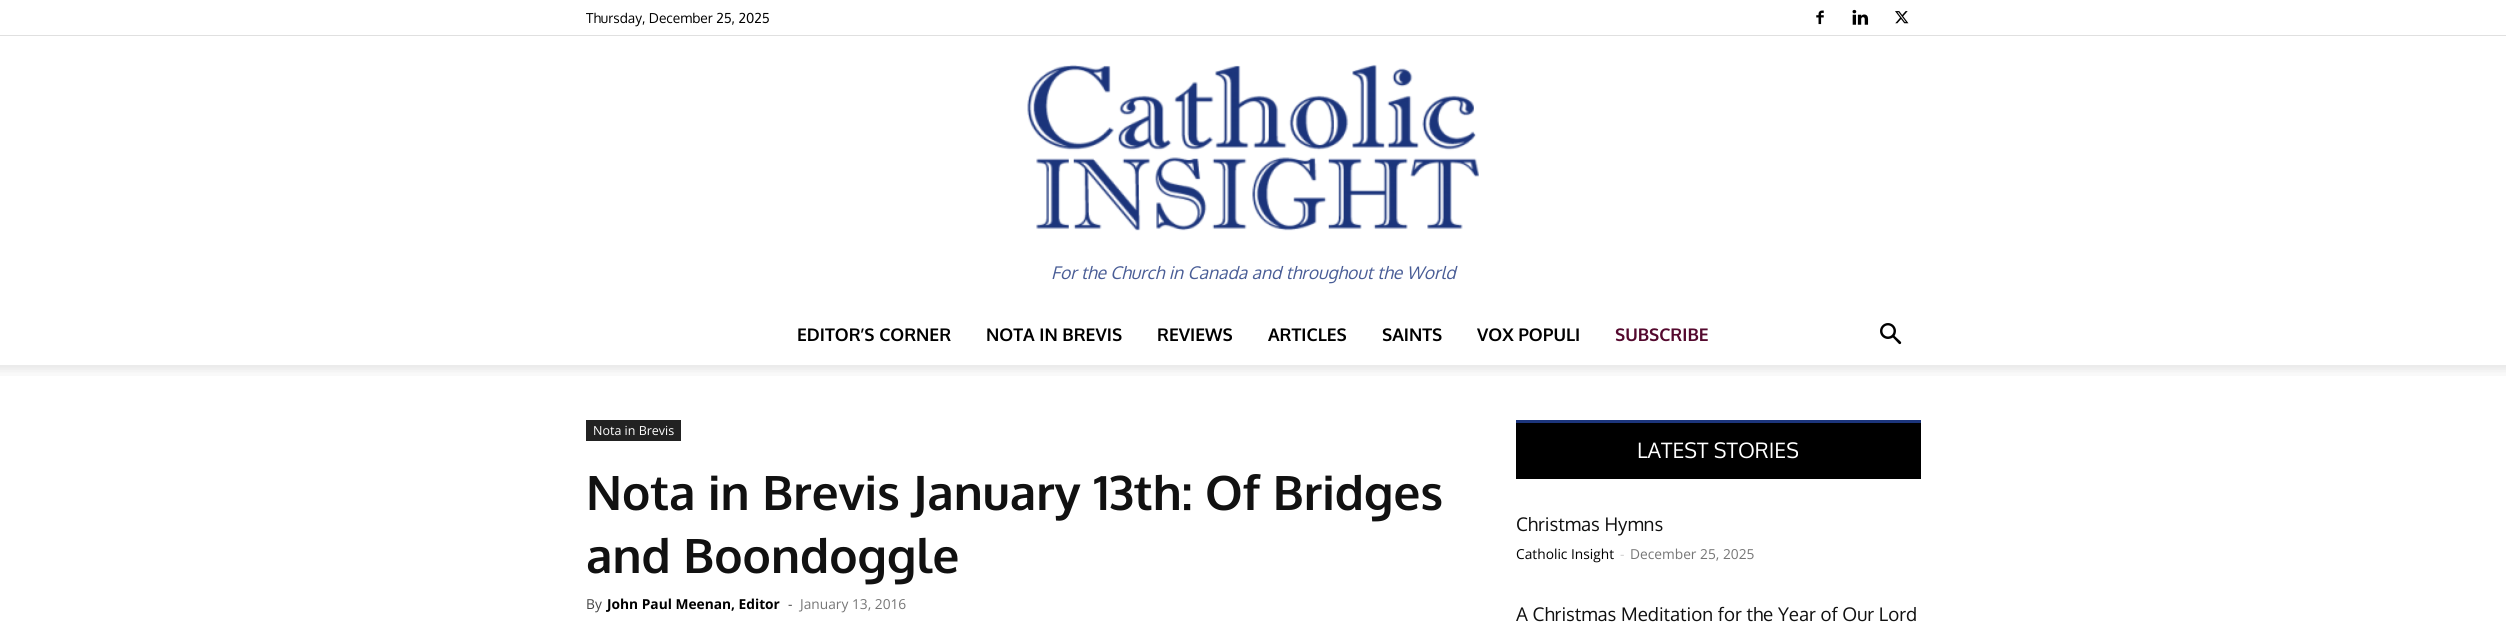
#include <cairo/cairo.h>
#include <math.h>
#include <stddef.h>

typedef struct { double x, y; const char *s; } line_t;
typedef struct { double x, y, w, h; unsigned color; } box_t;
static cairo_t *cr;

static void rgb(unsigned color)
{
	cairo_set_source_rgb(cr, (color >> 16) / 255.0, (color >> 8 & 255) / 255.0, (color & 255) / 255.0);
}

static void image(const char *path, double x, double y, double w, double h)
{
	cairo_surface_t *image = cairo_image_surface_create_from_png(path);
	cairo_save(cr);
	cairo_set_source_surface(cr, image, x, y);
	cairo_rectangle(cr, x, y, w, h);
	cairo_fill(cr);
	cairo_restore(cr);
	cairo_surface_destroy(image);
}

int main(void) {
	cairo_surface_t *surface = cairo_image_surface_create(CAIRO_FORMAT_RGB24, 2506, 623);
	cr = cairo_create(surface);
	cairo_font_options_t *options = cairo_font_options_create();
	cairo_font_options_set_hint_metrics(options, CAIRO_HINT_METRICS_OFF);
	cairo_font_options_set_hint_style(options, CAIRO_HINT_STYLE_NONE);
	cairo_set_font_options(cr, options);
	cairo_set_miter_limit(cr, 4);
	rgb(0xffffff);
	cairo_paint(cr);
	rgb(0xe0e0e0);
	cairo_rectangle(cr, 0, 35, 2506, 1);
	cairo_fill(cr);
	image("img/1.png", 1816, 10, 8, 15);
	image("img/2.png", 1852, 9, 17, 16);
	image("img/3.png", 1895, 11, 14, 13);
	image("img/4.png", 1027, 64, 452, 167);
	image("img/5.png", 1880, 323, 22, 22);
	image("img/6.png", 0, 365, 2506, 11);
	{
		static const box_t items[] = {
			{586, 420, 95, 21, 0x222222},
			{1516, 423, 405, 56, 0x000000},
			{1516, 420, 405, 3, 0x1c357c},
		};
		for (size_t i = 0; i < sizeof items / sizeof *items; i++) {
			rgb(items[i].color);
			cairo_rectangle(cr, items[i].x, items[i].y, items[i].w, items[i].h);
			cairo_fill(cr);
		}
	}
	cairo_select_font_face(cr, "Oxygen", CAIRO_FONT_SLANT_NORMAL, CAIRO_FONT_WEIGHT_NORMAL);
	cairo_set_font_size(cr, 13.75);
	rgb(0x000000);
	cairo_move_to(cr, 586, 23);
	cairo_show_text(cr, "Thursday, December 25, 2025");
	cairo_select_font_face(cr, "Oxygen", CAIRO_FONT_SLANT_ITALIC, CAIRO_FONT_WEIGHT_NORMAL);
	cairo_set_font_size(cr, 17.5);
	rgb(0x495d96);
	cairo_move_to(cr, 1051, 279);
	cairo_show_text(cr, "For the Church in Canada and throughout the World");
	cairo_select_font_face(cr, "Oxygen", CAIRO_FONT_SLANT_NORMAL, CAIRO_FONT_WEIGHT_BOLD);
	rgb(0x000000);
	{
		static const line_t items[] = {
			{797, 341, "EDITOR’S CORNER"},
			{986, 341, "NOTA IN BREVIS"},
			{1157, 341, "REVIEWS"},
			{1268, 341, "ARTICLES"},
			{1382, 341, "SAINTS"},
			{1477, 341, "VOX POPULI"},
		};
		for (size_t i = 0; i < sizeof items / sizeof *items; i++) {
			cairo_move_to(cr, items[i].x, items[i].y);
			cairo_show_text(cr, items[i].s);
		}
	}
	rgb(0x54092e);
	cairo_move_to(cr, 1615, 341);
	cairo_show_text(cr, "SUBSCRIBE");
	cairo_select_font_face(cr, "Open Sans", CAIRO_FONT_SLANT_NORMAL, CAIRO_FONT_WEIGHT_NORMAL);
	cairo_set_font_size(cr, 12.5);
	rgb(0xffffff);
	cairo_move_to(cr, 593, 435);
	cairo_show_text(cr, "Nota in Brevis");
	cairo_select_font_face(cr, "Oxygen", CAIRO_FONT_SLANT_NORMAL, CAIRO_FONT_WEIGHT_BOLD);
	cairo_set_font_size(cr, 47.5);
	rgb(0x111111);
	cairo_move_to(cr, 586, 510);
	cairo_show_text(cr, "Nota in Brevis January 13th: Of Bridges");
	cairo_move_to(cr, 586, 573);
	cairo_show_text(cr, "and Boondoggle");
	cairo_select_font_face(cr, "Open Sans", CAIRO_FONT_SLANT_NORMAL, CAIRO_FONT_WEIGHT_NORMAL);
	cairo_set_font_size(cr, 13.75);
	rgb(0x444444);
	cairo_move_to(cr, 586, 609);
	cairo_show_text(cr, "By");
	cairo_select_font_face(cr, "Open Sans", CAIRO_FONT_SLANT_NORMAL, CAIRO_FONT_WEIGHT_BOLD);
	rgb(0x000000);
	cairo_move_to(cr, 607, 609);
	cairo_show_text(cr, "John Paul Meenan, Editor");
	cairo_select_font_face(cr, "Open Sans", CAIRO_FONT_SLANT_NORMAL, CAIRO_FONT_WEIGHT_NORMAL);
	rgb(0x444444);
	cairo_move_to(cr, 788, 609);
	cairo_show_text(cr, "-");
	rgb(0x767676);
	cairo_move_to(cr, 800, 609);
	cairo_show_text(cr, "January 13, 2016");
	cairo_select_font_face(cr, "Oxygen", CAIRO_FONT_SLANT_NORMAL, CAIRO_FONT_WEIGHT_NORMAL);
	cairo_set_font_size(cr, 21.25);
	rgb(0xffffff);
	cairo_move_to(cr, 1637, 458);
	cairo_show_text(cr, "LATEST STORIES");
	cairo_set_font_size(cr, 18.75);
	rgb(0x111111);
	cairo_move_to(cr, 1516, 531);
	cairo_show_text(cr, "Christmas Hymns");
	cairo_select_font_face(cr, "Open Sans", CAIRO_FONT_SLANT_NORMAL, CAIRO_FONT_WEIGHT_NORMAL);
	cairo_set_font_size(cr, 13.75);
	rgb(0x000000);
	cairo_move_to(cr, 1516, 559);
	cairo_show_text(cr, "Catholic Insight");
	rgb(0xcccccc);
	cairo_move_to(cr, 1620, 559);
	cairo_show_text(cr, "-");
	rgb(0x767676);
	cairo_move_to(cr, 1630, 559);
	cairo_show_text(cr, "December 25, 2025");
	cairo_select_font_face(cr, "Oxygen", CAIRO_FONT_SLANT_NORMAL, CAIRO_FONT_WEIGHT_NORMAL);
	cairo_set_font_size(cr, 18.75);
	rgb(0x111111);
	cairo_move_to(cr, 1516, 621);
	cairo_show_text(cr, "A Christmas Meditation for the Year of Our Lord");
	cairo_surface_write_to_png(surface, "page.png");
	cairo_font_options_destroy(options);
	cairo_destroy(cr);
	cairo_surface_destroy(surface);
	return 0;
}
